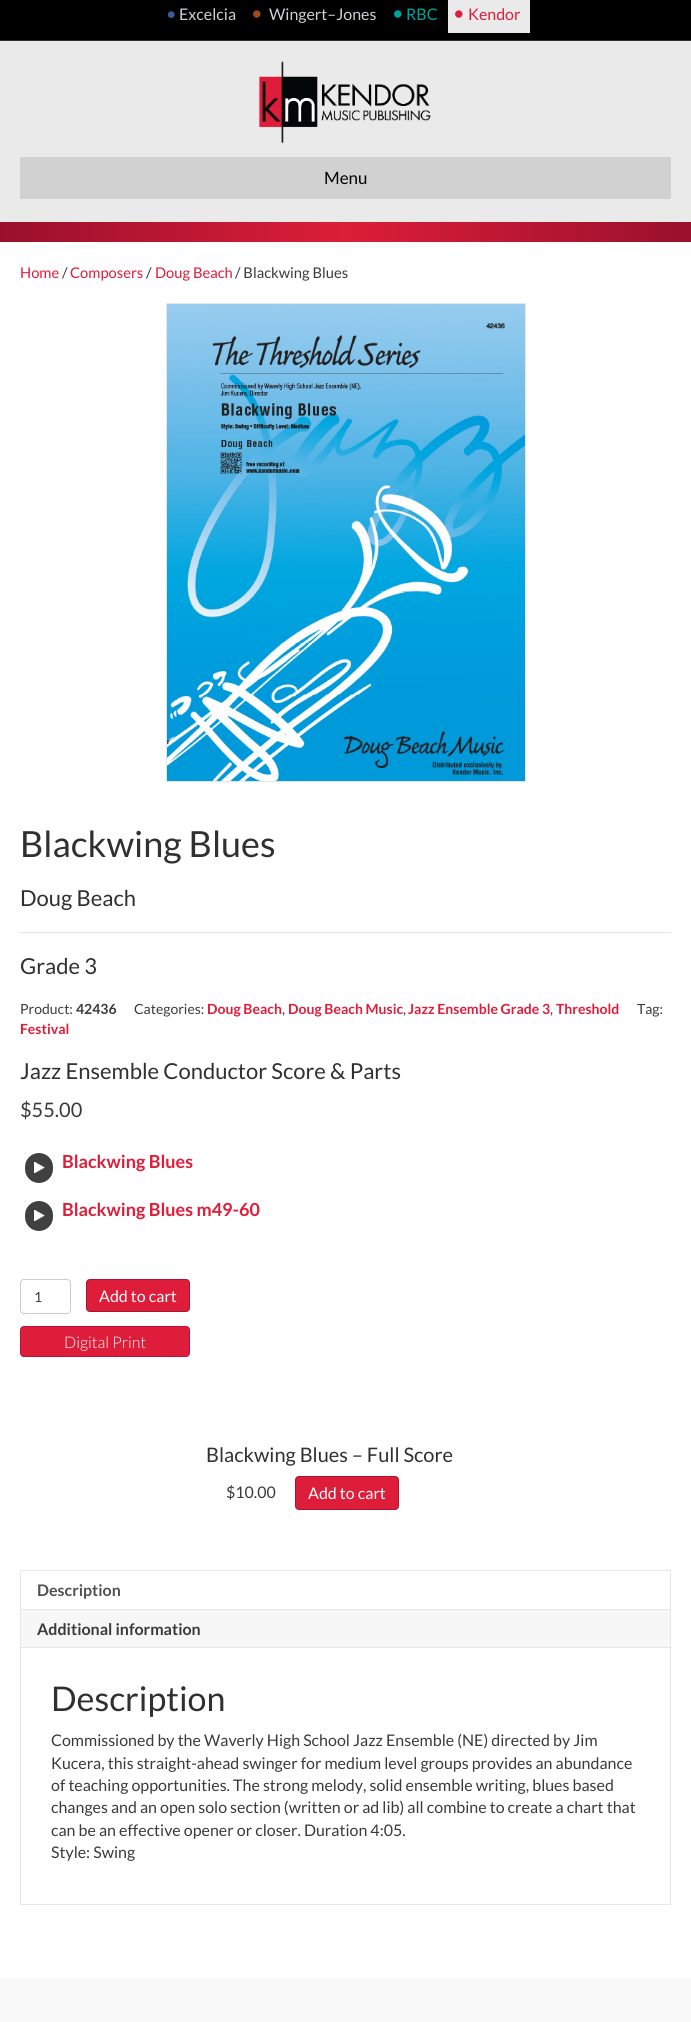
#include <cairo/cairo.h>
#include <math.h>
#include <stddef.h>

typedef struct { double x, y; const char *s; } line_t;
typedef struct { double x, y, w, h; unsigned color; } box_t;
static cairo_t *cr;

static void rgb(unsigned color)
{
	cairo_set_source_rgb(cr, (color >> 16) / 255.0, (color >> 8 & 255) / 255.0, (color & 255) / 255.0);
}

static void rrect(double x, double y, double w, double h, double r)
{
	cairo_new_sub_path(cr);
	cairo_arc(cr, x + w - r, y + h - r, r, 0, M_PI / 2);
	cairo_arc(cr, x + r, y + h - r, r, M_PI / 2, M_PI);
	cairo_arc(cr, x + r, y + r, r, M_PI, 1.5 * M_PI);
	cairo_arc(cr, x + w - r, y + r, r, 1.5 * M_PI, 2 * M_PI);
	cairo_close_path(cr);
}

static void image(const char *path, double x, double y, double w, double h)
{
	cairo_surface_t *image = cairo_image_surface_create_from_png(path);
	cairo_save(cr);
	cairo_set_source_surface(cr, image, x, y);
	cairo_rectangle(cr, x, y, w, h);
	cairo_fill(cr);
	cairo_restore(cr);
	cairo_surface_destroy(image);
}

int main(void) {
	cairo_surface_t *surface = cairo_image_surface_create(CAIRO_FORMAT_RGB24, 691, 2022);
	cr = cairo_create(surface);
	cairo_font_options_t *options = cairo_font_options_create();
	cairo_font_options_set_hint_metrics(options, CAIRO_HINT_METRICS_OFF);
	cairo_font_options_set_hint_style(options, CAIRO_HINT_STYLE_NONE);
	cairo_set_font_options(cr, options);
	cairo_set_miter_limit(cr, 4);
	rgb(0x000000);
	cairo_paint(cr);
	{
		static const box_t items[] = {
			{0, 40, 691, 1, 0x303030},
			{448, 0, 82, 33, 0xeaeaea},
			{0, 41, 691, 181, 0xeaeaea},
		};
		for (size_t i = 0; i < sizeof items / sizeof *items; i++) {
			rgb(items[i].color);
			cairo_rectangle(cr, items[i].x, items[i].y, items[i].w, items[i].h);
			cairo_fill(cr);
		}
	}
	image("img/1.png", 0, 222, 691, 20);
	image("img/2.png", 258, 61, 173, 83);
	rgb(0xd1d1d1);
	cairo_rectangle(cr, 20, 157, 651, 42);
	cairo_fill(cr);
	rgb(0xffffff);
	cairo_rectangle(cr, 0, 242, 691, 1736);
	cairo_fill(cr);
	cairo_rectangle(cr, 166.5, 303.5, 359, 478);
	rgb(0xe6e6e6);
	cairo_set_line_width(cr, 1);
	cairo_stroke(cr);
	image("img/3.png", 167, 304, 358, 477);
	rgb(0xe5e5e5);
	cairo_rectangle(cr, 20, 932, 651, 1);
	cairo_fill(cr);
	rgb(0x404040);
	rrect(25, 1153, 28, 30, 14);
	cairo_fill(cr);
	image("img/4.png", 34, 1162, 11, 11);
	rrect(25, 1201, 28, 30, 14);
	cairo_fill(cr);
	image("img/4.png", 34, 1210, 11, 11);
	rrect(20.5, 1279.5, 50, 34, 3.5);
	rgb(0xcccccc);
	cairo_stroke(cr);
	rgb(0xde1d3a);
	rrect(86.5, 1279.5, 103, 32, 3.5);
	cairo_fill_preserve(cr);
	rgb(0xa8162c);
	cairo_stroke(cr);
	rgb(0xde1d3a);
	rrect(20.5, 1326.5, 169, 30, 3.5);
	cairo_fill_preserve(cr);
	rgb(0xbf0f3e);
	cairo_stroke(cr);
	rgb(0xde1d3a);
	rrect(295.5, 1476.5, 103, 33, 3.5);
	cairo_fill_preserve(cr);
	rgb(0xa8162c);
	cairo_stroke(cr);
	{
		static const box_t items[] = {
			{20, 1570, 651, 1, 0xe6e6e6},
			{670, 1570, 1, 39, 0xe6e6e6},
			{20, 1570, 1, 39, 0xe6e6e6},
			{21, 1610, 649, 37, 0xf7f7f7},
			{20, 1609, 651, 1, 0xe6e6e6},
			{670, 1609, 1, 39, 0xe6e6e6},
			{20, 1609, 1, 39, 0xe6e6e6},
			{20, 1647, 651, 1, 0xe6e6e6},
			{670, 1648, 1, 257, 0xe6e6e6},
			{20, 1904, 651, 1, 0xe6e6e6},
			{20, 1648, 1, 257, 0xe6e6e6},
			{0, 1978, 691, 44, 0xf9f9f9},
		};
		for (size_t i = 0; i < sizeof items / sizeof *items; i++) {
			rgb(items[i].color);
			cairo_rectangle(cr, items[i].x, items[i].y, items[i].w, items[i].h);
			cairo_fill(cr);
		}
	}
	cairo_select_font_face(cr, "Lato", CAIRO_FONT_SLANT_NORMAL, CAIRO_FONT_WEIGHT_NORMAL);
	cairo_set_font_size(cr, 18);
	rgb(0x3e5b97);
	cairo_move_to(cr, 166, 20);
	cairo_show_text(cr, "•");
	cairo_set_font_size(cr, 16);
	rgb(0xcdd1d6);
	cairo_move_to(cr, 179, 20);
	cairo_show_text(cr, "Excelcia");
	cairo_set_font_size(cr, 20);
	rgb(0x9e4b23);
	cairo_move_to(cr, 251, 20);
	cairo_show_text(cr, "•");
	cairo_set_font_size(cr, 16);
	rgb(0xcdd1d6);
	cairo_move_to(cr, 269, 20);
	cairo_show_text(cr, "Wingert–Jones");
	cairo_set_font_size(cr, 20);
	rgb(0x00a49b);
	cairo_move_to(cr, 392, 20);
	cairo_show_text(cr, "•");
	cairo_set_font_size(cr, 16);
	cairo_move_to(cr, 406, 20);
	cairo_show_text(cr, "RBC");
	cairo_set_font_size(cr, 20);
	rgb(0xde1d3a);
	cairo_move_to(cr, 453, 20);
	cairo_show_text(cr, "•");
	cairo_set_font_size(cr, 16);
	cairo_move_to(cr, 468, 20);
	cairo_show_text(cr, "Kendor");
	cairo_set_font_size(cr, 17);
	rgb(0x000000);
	cairo_move_to(cr, 324, 184);
	cairo_show_text(cr, "Menu");
	cairo_set_font_size(cr, 14.75);
	rgb(0xde1d3a);
	cairo_move_to(cr, 20, 278);
	cairo_show_text(cr, "Home");
	rgb(0x3a3a3a);
	cairo_move_to(cr, 62, 278);
	cairo_show_text(cr, "/");
	rgb(0xde1d3a);
	cairo_move_to(cr, 70, 278);
	cairo_show_text(cr, "Composers");
	rgb(0x3a3a3a);
	cairo_move_to(cr, 146, 278);
	cairo_show_text(cr, "/");
	rgb(0xde1d3a);
	cairo_move_to(cr, 155, 278);
	cairo_show_text(cr, "Doug Beach");
	rgb(0x3a3a3a);
	cairo_move_to(cr, 235, 278);
	cairo_show_text(cr, "/ Blackwing Blues");
	cairo_set_font_size(cr, 36);
	rgb(0x303030);
	cairo_move_to(cr, 20, 857);
	cairo_show_text(cr, "Blackwing Blues");
	cairo_set_font_size(cr, 22);
	cairo_move_to(cr, 20, 906);
	cairo_show_text(cr, "Doug Beach");
	cairo_move_to(cr, 20, 974);
	cairo_show_text(cr, "Grade 3");
	cairo_set_font_size(cr, 14);
	rgb(0x3a3a3a);
	cairo_move_to(cr, 20, 1014);
	cairo_show_text(cr, "Product:");
	cairo_select_font_face(cr, "Lato", CAIRO_FONT_SLANT_NORMAL, CAIRO_FONT_WEIGHT_BOLD);
	cairo_move_to(cr, 76, 1014);
	cairo_show_text(cr, "42436");
	cairo_select_font_face(cr, "Lato", CAIRO_FONT_SLANT_NORMAL, CAIRO_FONT_WEIGHT_NORMAL);
	cairo_move_to(cr, 134, 1014);
	cairo_show_text(cr, "Categories:");
	cairo_select_font_face(cr, "Lato", CAIRO_FONT_SLANT_NORMAL, CAIRO_FONT_WEIGHT_BOLD);
	rgb(0xde1d3a);
	cairo_move_to(cr, 207, 1014);
	cairo_show_text(cr, "Doug Beach");
	cairo_select_font_face(cr, "Lato", CAIRO_FONT_SLANT_NORMAL, CAIRO_FONT_WEIGHT_NORMAL);
	rgb(0x3a3a3a);
	cairo_move_to(cr, 282, 1014);
	cairo_show_text(cr, ",");
	cairo_select_font_face(cr, "Lato", CAIRO_FONT_SLANT_NORMAL, CAIRO_FONT_WEIGHT_BOLD);
	rgb(0xde1d3a);
	cairo_move_to(cr, 288, 1014);
	cairo_show_text(cr, "Doug Beach Music");
	cairo_select_font_face(cr, "Lato", CAIRO_FONT_SLANT_NORMAL, CAIRO_FONT_WEIGHT_NORMAL);
	rgb(0x3a3a3a);
	cairo_move_to(cr, 403, 1014);
	cairo_show_text(cr, ",");
	cairo_select_font_face(cr, "Lato", CAIRO_FONT_SLANT_NORMAL, CAIRO_FONT_WEIGHT_BOLD);
	rgb(0xde1d3a);
	cairo_move_to(cr, 408, 1014);
	cairo_show_text(cr, "Jazz Ensemble Grade 3");
	cairo_select_font_face(cr, "Lato", CAIRO_FONT_SLANT_NORMAL, CAIRO_FONT_WEIGHT_NORMAL);
	rgb(0x3a3a3a);
	cairo_move_to(cr, 550, 1014);
	cairo_show_text(cr, ",");
	cairo_select_font_face(cr, "Lato", CAIRO_FONT_SLANT_NORMAL, CAIRO_FONT_WEIGHT_BOLD);
	rgb(0xde1d3a);
	cairo_move_to(cr, 556, 1014);
	cairo_show_text(cr, "Threshold");
	cairo_select_font_face(cr, "Lato", CAIRO_FONT_SLANT_NORMAL, CAIRO_FONT_WEIGHT_NORMAL);
	rgb(0x3a3a3a);
	cairo_move_to(cr, 637, 1014);
	cairo_show_text(cr, "Tag:");
	cairo_select_font_face(cr, "Lato", CAIRO_FONT_SLANT_NORMAL, CAIRO_FONT_WEIGHT_BOLD);
	rgb(0xde1d3a);
	cairo_move_to(cr, 20, 1034);
	cairo_show_text(cr, "Festival");
	cairo_select_font_face(cr, "Lato", CAIRO_FONT_SLANT_NORMAL, CAIRO_FONT_WEIGHT_NORMAL);
	cairo_set_font_size(cr, 22);
	rgb(0x303030);
	cairo_move_to(cr, 20, 1079);
	cairo_show_text(cr, "Jazz Ensemble Conductor Score & Parts");
	cairo_set_font_size(cr, 20);
	rgb(0x3a3a3a);
	cairo_move_to(cr, 20, 1117);
	cairo_show_text(cr, "$55.00");
	cairo_select_font_face(cr, "Lato", CAIRO_FONT_SLANT_NORMAL, CAIRO_FONT_WEIGHT_BOLD);
	cairo_set_font_size(cr, 18);
	rgb(0xde1d3a);
	cairo_move_to(cr, 62, 1168);
	cairo_show_text(cr, "Blackwing Blues");
	cairo_move_to(cr, 62, 1216);
	cairo_show_text(cr, "Blackwing Blues m49-60");
	cairo_select_font_face(cr, "Lato", CAIRO_FONT_SLANT_NORMAL, CAIRO_FONT_WEIGHT_NORMAL);
	cairo_set_font_size(cr, 14);
	rgb(0x3a3a3a);
	cairo_move_to(cr, 34, 1302);
	cairo_show_text(cr, "1");
	cairo_set_font_size(cr, 16);
	rgb(0xffffff);
	cairo_move_to(cr, 99, 1302);
	cairo_show_text(cr, "Add to cart");
	cairo_select_font_face(cr, "Lato Light", CAIRO_FONT_SLANT_NORMAL, CAIRO_FONT_WEIGHT_NORMAL);
	cairo_move_to(cr, 64, 1348);
	cairo_show_text(cr, "Digital Print");
	cairo_select_font_face(cr, "Lato", CAIRO_FONT_SLANT_NORMAL, CAIRO_FONT_WEIGHT_NORMAL);
	cairo_set_font_size(cr, 20);
	rgb(0x303030);
	cairo_move_to(cr, 206, 1462);
	cairo_show_text(cr, "Blackwing Blues – Full Score");
	cairo_set_font_size(cr, 16);
	rgb(0x3a3a3a);
	cairo_move_to(cr, 226, 1498);
	cairo_show_text(cr, "$10.00");
	rgb(0xffffff);
	cairo_move_to(cr, 308, 1499);
	cairo_show_text(cr, "Add to cart");
	cairo_select_font_face(cr, "Lato", CAIRO_FONT_SLANT_NORMAL, CAIRO_FONT_WEIGHT_BOLD);
	rgb(0x515151);
	cairo_move_to(cr, 37, 1596);
	cairo_show_text(cr, "Description");
	rgb(0x3a3a3a);
	cairo_move_to(cr, 37, 1635);
	cairo_show_text(cr, "Additional information");
	cairo_select_font_face(cr, "Lato", CAIRO_FONT_SLANT_NORMAL, CAIRO_FONT_WEIGHT_NORMAL);
	cairo_set_font_size(cr, 34);
	rgb(0x303030);
	cairo_move_to(cr, 51, 1711);
	cairo_show_text(cr, "Description");
	cairo_set_font_size(cr, 16);
	rgb(0x3a3a3a);
	{
		static const line_t items[] = {
			{51, 1746, "Commissioned by the Waverly High School Jazz Ensemble (NE) directed by Jim"},
			{51, 1769, "Kucera, this straight-ahead swinger for medium level groups provides an abundance"},
			{51, 1791, "of teaching opportunities. The strong melody, solid ensemble writing, blues based"},
			{51, 1813, "changes and an open solo section (written or ad lib) all combine to create a chart that"},
			{51, 1836, "can be an effective opener or closer. Duration 4:05."},
			{51, 1858, "Style: Swing"},
		};
		for (size_t i = 0; i < sizeof items / sizeof *items; i++) {
			cairo_move_to(cr, items[i].x, items[i].y);
			cairo_show_text(cr, items[i].s);
		}
	}
	cairo_surface_write_to_png(surface, "page.png");
	cairo_font_options_destroy(options);
	cairo_destroy(cr);
	cairo_surface_destroy(surface);
	return 0;
}
